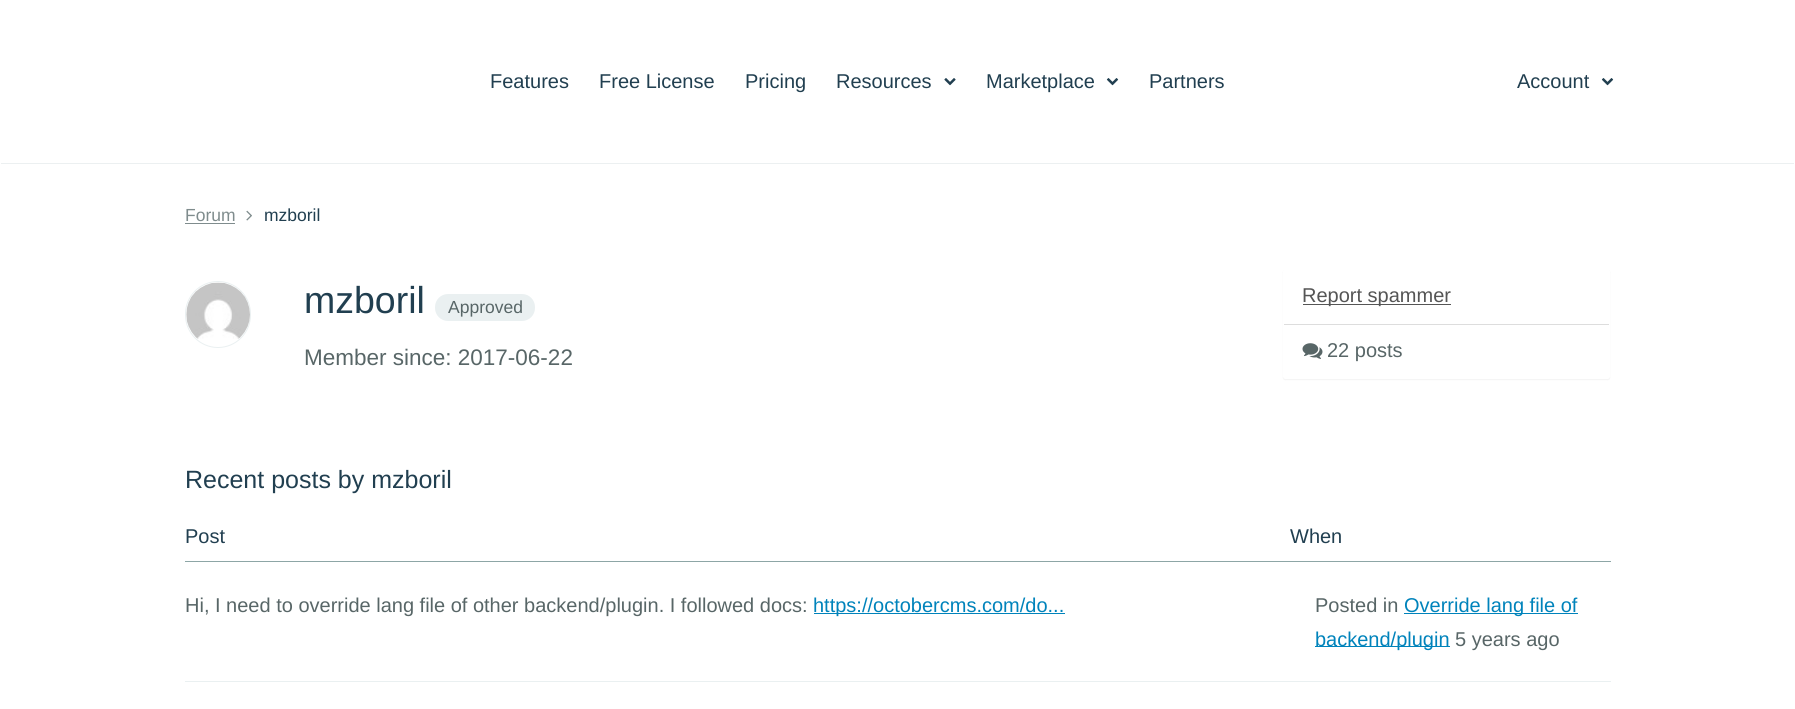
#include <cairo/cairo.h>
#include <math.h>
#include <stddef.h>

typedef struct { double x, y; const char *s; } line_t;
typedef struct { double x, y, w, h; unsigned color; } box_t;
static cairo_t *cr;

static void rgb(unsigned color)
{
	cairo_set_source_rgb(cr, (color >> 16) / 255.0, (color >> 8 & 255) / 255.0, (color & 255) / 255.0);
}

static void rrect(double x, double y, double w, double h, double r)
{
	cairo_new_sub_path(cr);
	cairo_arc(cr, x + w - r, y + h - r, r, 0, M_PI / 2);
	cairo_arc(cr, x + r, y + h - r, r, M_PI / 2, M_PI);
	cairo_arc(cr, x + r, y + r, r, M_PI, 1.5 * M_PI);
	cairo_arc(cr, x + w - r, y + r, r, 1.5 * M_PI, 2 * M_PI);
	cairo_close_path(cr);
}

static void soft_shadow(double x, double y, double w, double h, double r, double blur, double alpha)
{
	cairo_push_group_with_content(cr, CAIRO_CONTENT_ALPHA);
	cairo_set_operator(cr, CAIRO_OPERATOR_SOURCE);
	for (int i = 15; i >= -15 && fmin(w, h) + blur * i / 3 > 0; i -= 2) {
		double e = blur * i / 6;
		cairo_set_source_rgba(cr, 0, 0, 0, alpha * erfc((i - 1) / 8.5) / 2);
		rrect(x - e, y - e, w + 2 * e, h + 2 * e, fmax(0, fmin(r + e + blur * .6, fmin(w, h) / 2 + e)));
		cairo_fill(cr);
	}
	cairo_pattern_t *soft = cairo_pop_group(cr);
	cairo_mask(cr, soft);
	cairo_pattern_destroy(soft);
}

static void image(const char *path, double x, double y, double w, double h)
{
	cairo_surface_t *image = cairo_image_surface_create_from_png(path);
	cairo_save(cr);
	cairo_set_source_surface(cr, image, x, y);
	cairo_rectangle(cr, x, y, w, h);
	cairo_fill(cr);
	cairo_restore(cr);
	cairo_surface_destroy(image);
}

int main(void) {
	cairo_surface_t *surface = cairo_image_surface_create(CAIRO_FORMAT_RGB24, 1795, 709);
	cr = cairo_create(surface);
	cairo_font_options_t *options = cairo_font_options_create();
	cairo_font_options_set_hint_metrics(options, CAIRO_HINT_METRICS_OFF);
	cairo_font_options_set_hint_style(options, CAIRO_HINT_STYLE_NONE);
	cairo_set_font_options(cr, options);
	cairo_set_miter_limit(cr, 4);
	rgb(0xffffff);
	cairo_paint(cr);
	rgb(0xecf0f1);
	cairo_rectangle(cr, 1, 163, 1793, 1);
	cairo_fill(cr);
	image("img/1.png", 944, 78, 12, 8);
	image("img/2.png", 1106, 78, 13, 8);
	image("img/2.png", 1601, 78, 13, 8);
	rgb(0x7f8c8d);
	cairo_rectangle(cr, 185, 223, 50, 1);
	cairo_fill(cr);
	image("img/3.png", 246, 210, 6, 11);
	rrect(185.5, 281.5, 65, 66, 32.5);
	rgb(0xeaf0f1);
	cairo_set_line_width(cr, 1);
	cairo_stroke(cr);
	image("img/4.png", 186, 282, 64, 57);
	rrect(435, 294, 100, 27, 13);
	cairo_fill(cr);
	rgb(0x000000);
	soft_shadow(1283, 270, 327, 110, 2.5, 0.5, 0.05);
	rgb(0xffffff);
	rrect(1283, 269, 327, 110, 2.5);
	cairo_fill(cr);
	rgb(0x555555);
	cairo_rectangle(cr, 1303, 304, 148, 1);
	cairo_fill(cr);
	rgb(0xdddddd);
	cairo_rectangle(cr, 1284, 324, 325, 1);
	cairo_fill(cr);
	image("img/5.png", 1302, 343, 21, 16);
	{
		static const box_t items[] = {
			{185, 561, 1426, 1, 0x8da6a6},
			{814, 613, 251, 1, 0x0083bb},
			{185, 681, 1426, 1, 0xeaf0f1},
			{1404, 613, 174, 1, 0x0083bb},
			{1315, 646, 135, 1, 0x0083bb},
		};
		for (size_t i = 0; i < sizeof items / sizeof *items; i++) {
			rgb(items[i].color);
			cairo_rectangle(cr, items[i].x, items[i].y, items[i].w, items[i].h);
			cairo_fill(cr);
		}
	}
	cairo_select_font_face(cr, "Liberation Sans", CAIRO_FONT_SLANT_NORMAL, CAIRO_FONT_WEIGHT_NORMAL);
	cairo_set_font_size(cr, 20);
	rgb(0x213f50);
	{
		static const line_t items[] = {
			{490, 88, "Features"},
			{599, 88, "Free License"},
			{745, 88, "Pricing"},
			{836, 88, "Resources"},
			{986, 88, "Marketplace"},
			{1149, 88, "Partners"},
			{1517, 88, "Account"},
		};
		for (size_t i = 0; i < sizeof items / sizeof *items; i++) {
			cairo_move_to(cr, items[i].x, items[i].y);
			cairo_show_text(cr, items[i].s);
		}
	}
	cairo_set_font_size(cr, 17.5);
	rgb(0x7f8c8d);
	cairo_move_to(cr, 185, 221);
	cairo_show_text(cr, "Forum");
	rgb(0x213f50);
	cairo_move_to(cr, 264, 221);
	cairo_show_text(cr, "mzboril");
	cairo_set_font_size(cr, 37.5);
	cairo_move_to(cr, 304, 313);
	cairo_show_text(cr, "mzboril");
	cairo_set_font_size(cr, 17.5);
	rgb(0x586667);
	cairo_move_to(cr, 448, 313);
	cairo_show_text(cr, "Approved");
	cairo_set_font_size(cr, 22.5);
	cairo_move_to(cr, 304, 365);
	cairo_show_text(cr, "Member since: 2017-06-22");
	cairo_set_font_size(cr, 20);
	rgb(0x555555);
	cairo_move_to(cr, 1302, 302);
	cairo_show_text(cr, "Report spammer");
	rgb(0x586667);
	cairo_move_to(cr, 1327, 357);
	cairo_show_text(cr, "22 posts");
	cairo_set_font_size(cr, 25);
	rgb(0x213f50);
	cairo_move_to(cr, 185, 488);
	cairo_show_text(cr, "Recent posts by mzboril");
	cairo_set_font_size(cr, 20);
	cairo_move_to(cr, 185, 543);
	cairo_show_text(cr, "Post");
	cairo_move_to(cr, 1290, 543);
	cairo_show_text(cr, "When");
	rgb(0x586667);
	cairo_move_to(cr, 185, 612);
	cairo_show_text(cr, "Hi, I need to override lang file of other backend/plugin. I followed docs:");
	rgb(0x0083bb);
	cairo_move_to(cr, 813, 612);
	cairo_show_text(cr, "https://octobercms.com/do...");
	rgb(0x586667);
	cairo_move_to(cr, 1315, 612);
	cairo_show_text(cr, "Posted in");
	rgb(0x0083bb);
	cairo_move_to(cr, 1404, 612);
	cairo_show_text(cr, "Override lang file of");
	cairo_move_to(cr, 1315, 646);
	cairo_show_text(cr, "backend/plugin");
	rgb(0x586667);
	cairo_move_to(cr, 1455, 646);
	cairo_show_text(cr, "5 years ago");
	cairo_surface_write_to_png(surface, "page.png");
	cairo_font_options_destroy(options);
	cairo_destroy(cr);
	cairo_surface_destroy(surface);
	return 0;
}
